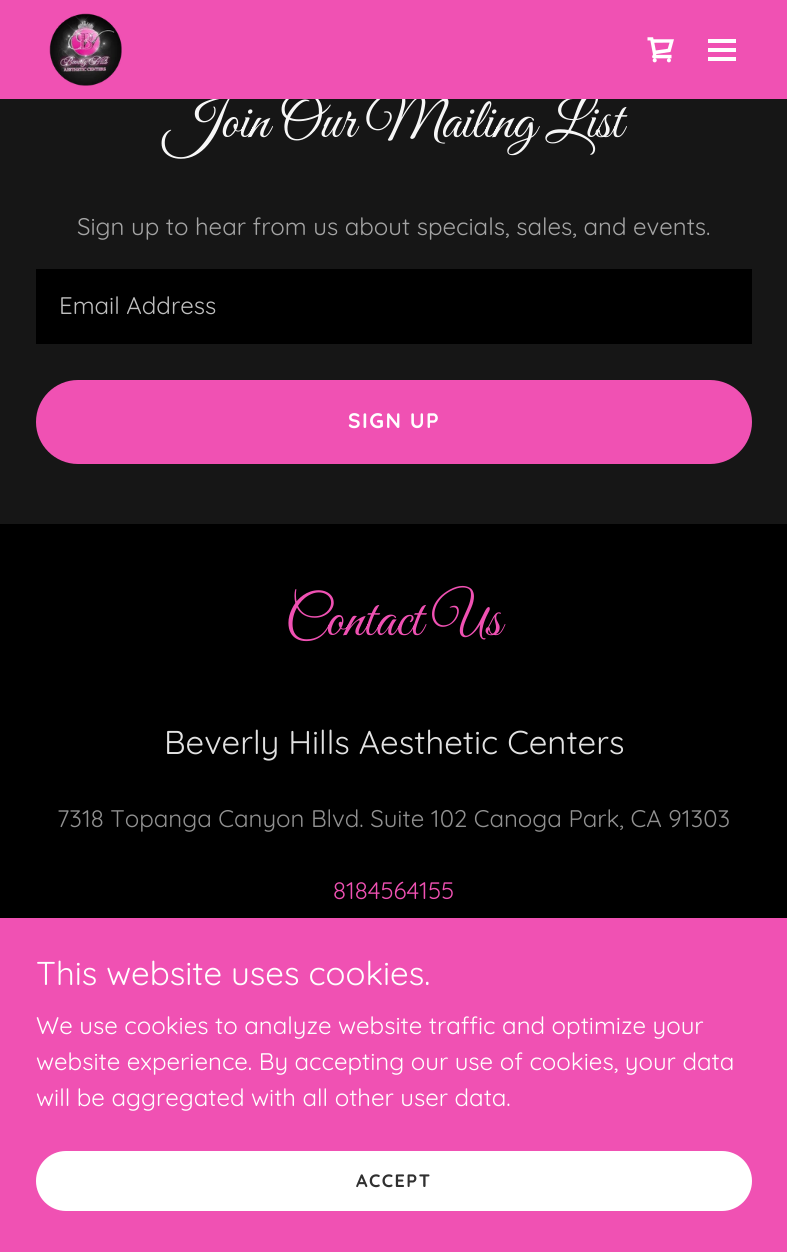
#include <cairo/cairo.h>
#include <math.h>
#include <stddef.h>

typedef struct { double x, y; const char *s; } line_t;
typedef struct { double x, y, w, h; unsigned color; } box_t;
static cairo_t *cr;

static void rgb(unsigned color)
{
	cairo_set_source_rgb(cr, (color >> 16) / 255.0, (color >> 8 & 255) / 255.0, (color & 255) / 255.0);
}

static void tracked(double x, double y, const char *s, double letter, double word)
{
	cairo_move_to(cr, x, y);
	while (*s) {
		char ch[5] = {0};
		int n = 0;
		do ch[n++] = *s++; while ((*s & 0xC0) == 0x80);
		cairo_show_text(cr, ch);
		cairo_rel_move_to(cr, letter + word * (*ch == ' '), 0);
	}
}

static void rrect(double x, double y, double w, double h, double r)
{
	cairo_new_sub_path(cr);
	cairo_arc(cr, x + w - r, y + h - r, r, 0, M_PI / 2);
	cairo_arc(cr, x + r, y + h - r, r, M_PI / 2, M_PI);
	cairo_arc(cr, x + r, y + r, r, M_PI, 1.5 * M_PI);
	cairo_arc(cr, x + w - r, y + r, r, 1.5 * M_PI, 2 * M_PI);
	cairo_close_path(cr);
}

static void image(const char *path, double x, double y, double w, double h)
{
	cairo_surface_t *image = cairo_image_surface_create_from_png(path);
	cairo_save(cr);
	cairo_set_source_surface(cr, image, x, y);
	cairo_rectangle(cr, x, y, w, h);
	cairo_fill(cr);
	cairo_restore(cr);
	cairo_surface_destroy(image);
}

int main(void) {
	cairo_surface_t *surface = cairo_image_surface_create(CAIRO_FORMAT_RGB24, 787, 1252);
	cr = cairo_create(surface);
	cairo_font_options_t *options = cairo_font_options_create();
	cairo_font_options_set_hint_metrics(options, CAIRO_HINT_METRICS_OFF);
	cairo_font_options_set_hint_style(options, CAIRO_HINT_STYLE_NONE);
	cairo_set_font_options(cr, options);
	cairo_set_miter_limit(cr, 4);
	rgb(0x161616);
	cairo_paint(cr);
	rgb(0x000000);
	cairo_rectangle(cr, 36, 269, 716, 75);
	cairo_fill(cr);
	rgb(0xf051b3);
	rrect(36, 380, 716, 84, 42);
	cairo_fill(cr);
	rgb(0x000000);
	cairo_rectangle(cr, 0, 524, 787, 394);
	cairo_fill(cr);
	rgb(0xf051b3);
	cairo_rectangle(cr, 0, 918, 787, 334);
	cairo_fill(cr);
	rgb(0xffffff);
	rrect(36, 1151, 716, 60, 30);
	cairo_fill(cr);
	cairo_select_font_face(cr, "Great Vibes", CAIRO_FONT_SLANT_NORMAL, CAIRO_FONT_WEIGHT_NORMAL);
	cairo_set_font_size(cr, 57);
	rgb(0xf7f7f7);
	cairo_move_to(cr, 165, 137);
	cairo_show_text(cr, "Join Our Mailing List");
	{
		static const box_t items[] = {
			{0, 0, 787, 99, 0xf051b3},
			{708, 57, 28, 4, 0xffffff},
			{708, 48, 28, 4, 0xffffff},
			{708, 39, 28, 4, 0xffffff},
		};
		for (size_t i = 0; i < sizeof items / sizeof *items; i++) {
			rgb(items[i].color);
			cairo_rectangle(cr, items[i].x, items[i].y, items[i].w, items[i].h);
			cairo_fill(cr);
		}
	}
	image("img/2.png", 647, 37, 27, 26);
	image("img/1.png", 49, 13, 73, 73);
	cairo_select_font_face(cr, "Quicksand", CAIRO_FONT_SLANT_NORMAL, CAIRO_FONT_WEIGHT_NORMAL);
	cairo_set_font_size(cr, 24);
	rgb(0xa4a4a4);
	cairo_move_to(cr, 77, 235);
	cairo_show_text(cr, "Sign up to hear from us about specials, sales, and events.");
	rgb(0xbfbfbf);
	cairo_move_to(cr, 59, 314);
	cairo_show_text(cr, "Email Address");
	cairo_select_font_face(cr, "Quicksand", CAIRO_FONT_SLANT_NORMAL, CAIRO_FONT_WEIGHT_BOLD);
	cairo_set_font_size(cr, 21);
	rgb(0xffffff);
	tracked(348, 428, "SIGN UP", 1.5, 0);
	cairo_select_font_face(cr, "Great Vibes", CAIRO_FONT_SLANT_NORMAL, CAIRO_FONT_WEIGHT_NORMAL);
	cairo_set_font_size(cr, 57);
	rgb(0xf051b3);
	cairo_move_to(cr, 285, 635);
	cairo_show_text(cr, "Contact Us");
	cairo_select_font_face(cr, "Quicksand", CAIRO_FONT_SLANT_NORMAL, CAIRO_FONT_WEIGHT_NORMAL);
	cairo_set_font_size(cr, 33);
	rgb(0xe2e2e2);
	cairo_move_to(cr, 164, 754);
	cairo_show_text(cr, "Beverly Hills Aesthetic Centers");
	cairo_set_font_size(cr, 24);
	rgb(0x919191);
	cairo_move_to(cr, 57, 827);
	cairo_show_text(cr, "7318 Topanga Canyon Blvd. Suite 102 Canoga Park, CA 91303");
	rgb(0xf051b3);
	cairo_move_to(cr, 333, 899);
	cairo_show_text(cr, "8184564155");
	cairo_set_font_size(cr, 33);
	rgb(0xffffff);
	cairo_move_to(cr, 36, 985);
	cairo_show_text(cr, "This website uses cookies.");
	cairo_set_font_size(cr, 24);
	{
		static const line_t items[] = {
			{36, 1034, "We use cookies to analyze website traffic and optimize your"},
			{36, 1070, "website experience. By accepting our use of cookies, your data"},
			{36, 1106, "will be aggregated with all other user data."},
		};
		for (size_t i = 0; i < sizeof items / sizeof *items; i++) {
			cairo_move_to(cr, items[i].x, items[i].y);
			cairo_show_text(cr, items[i].s);
		}
	}
	cairo_select_font_face(cr, "Quicksand", CAIRO_FONT_SLANT_NORMAL, CAIRO_FONT_WEIGHT_BOLD);
	cairo_set_font_size(cr, 18);
	rgb(0x303030);
	tracked(356, 1187, "ACCEPT", 1.5, 0);
	cairo_surface_write_to_png(surface, "page.png");
	cairo_font_options_destroy(options);
	cairo_destroy(cr);
	cairo_surface_destroy(surface);
	return 0;
}
